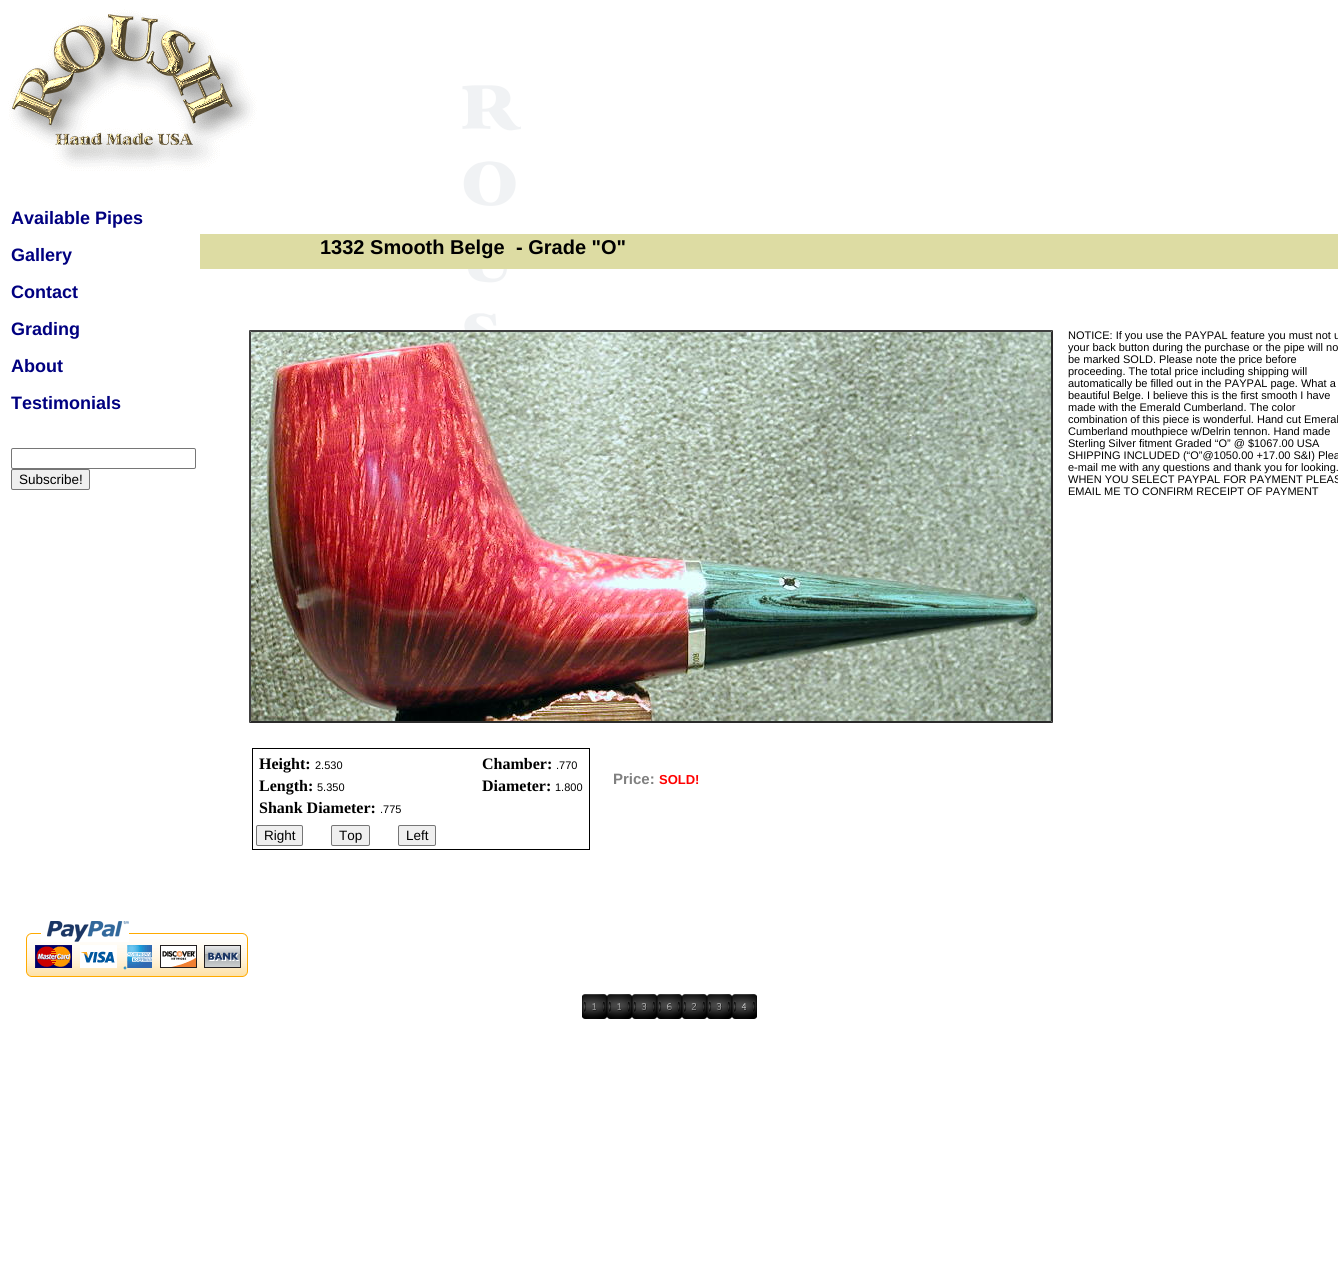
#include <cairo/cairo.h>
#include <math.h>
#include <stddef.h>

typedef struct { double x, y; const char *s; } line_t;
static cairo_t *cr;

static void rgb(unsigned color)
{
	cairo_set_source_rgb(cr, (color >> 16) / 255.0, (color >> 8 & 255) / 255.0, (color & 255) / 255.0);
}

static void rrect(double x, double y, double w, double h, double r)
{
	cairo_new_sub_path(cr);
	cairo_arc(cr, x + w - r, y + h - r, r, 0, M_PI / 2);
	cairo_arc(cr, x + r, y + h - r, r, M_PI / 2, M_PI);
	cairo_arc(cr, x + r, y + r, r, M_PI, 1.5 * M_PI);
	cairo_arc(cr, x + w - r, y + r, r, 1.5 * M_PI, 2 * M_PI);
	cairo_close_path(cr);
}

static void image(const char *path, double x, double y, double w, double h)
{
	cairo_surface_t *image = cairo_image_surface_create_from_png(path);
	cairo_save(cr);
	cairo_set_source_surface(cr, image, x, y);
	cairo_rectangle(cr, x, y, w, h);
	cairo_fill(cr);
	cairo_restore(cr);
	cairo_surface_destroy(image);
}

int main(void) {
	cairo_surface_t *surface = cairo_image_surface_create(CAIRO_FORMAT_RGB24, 1338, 1275);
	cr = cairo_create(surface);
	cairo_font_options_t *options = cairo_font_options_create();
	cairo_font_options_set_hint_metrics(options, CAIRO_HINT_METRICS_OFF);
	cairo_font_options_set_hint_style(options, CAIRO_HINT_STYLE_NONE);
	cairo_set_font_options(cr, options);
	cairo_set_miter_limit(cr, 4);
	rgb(0xffffff);
	cairo_paint(cr);
	image("img/1.png", 462, 85, 59, 245);
	image("img/2.png", 8, 9, 249, 162);
	rrect(11.5, 448.5, 184, 20, 1.5);
	rgb(0x767676);
	cairo_set_line_width(cr, 1);
	cairo_stroke(cr);
	rgb(0xefefef);
	rrect(11.5, 469.5, 78, 20, 1.5);
	cairo_fill_preserve(cr);
	rgb(0x767676);
	cairo_stroke(cr);
	rgb(0xdddca3);
	cairo_rectangle(cr, 200, 234, 1138, 35);
	cairo_fill(cr);
	rgb(0x404040);
	cairo_new_path(cr);
	cairo_move_to(cr, 249, 330);
	cairo_line_to(cr, 1053, 330);
	cairo_line_to(cr, 1051, 332);
	cairo_line_to(cr, 251, 332);
	cairo_close_path(cr);
	cairo_fill(cr);
	rgb(0x2b2b2b);
	cairo_new_path(cr);
	cairo_move_to(cr, 1053, 330);
	cairo_line_to(cr, 1053, 723);
	cairo_line_to(cr, 1051, 721);
	cairo_line_to(cr, 1051, 332);
	cairo_close_path(cr);
	cairo_fill(cr);
	cairo_new_path(cr);
	cairo_move_to(cr, 1053, 723);
	cairo_line_to(cr, 249, 723);
	cairo_line_to(cr, 251, 721);
	cairo_line_to(cr, 1051, 721);
	cairo_close_path(cr);
	cairo_fill(cr);
	rgb(0x404040);
	cairo_new_path(cr);
	cairo_move_to(cr, 249, 723);
	cairo_line_to(cr, 249, 330);
	cairo_line_to(cr, 251, 332);
	cairo_line_to(cr, 251, 721);
	cairo_close_path(cr);
	cairo_fill(cr);
	image("img/3.png", 251, 332, 800, 389);
	cairo_rectangle(cr, 252.5, 748.5, 337, 101);
	rgb(0x000000);
	cairo_stroke(cr);
	rgb(0xefefef);
	rrect(256.5, 825.5, 46, 20, 1.5);
	cairo_fill_preserve(cr);
	rgb(0x767676);
	cairo_stroke(cr);
	rgb(0xefefef);
	rrect(331.5, 825.5, 38, 20, 1.5);
	cairo_fill_preserve(cr);
	rgb(0x767676);
	cairo_stroke(cr);
	rgb(0xefefef);
	rrect(398.5, 825.5, 37, 20, 1.5);
	cairo_fill_preserve(cr);
	rgb(0x767676);
	cairo_stroke(cr);
	image("img/4.png", 26, 921, 222, 56);
	image("img/5.png", 582, 994, 175, 25);
	cairo_select_font_face(cr, "Liberation Sans", CAIRO_FONT_SLANT_NORMAL, CAIRO_FONT_WEIGHT_BOLD);
	cairo_set_font_size(cr, 18);
	rgb(0x000080);
	{
		static const line_t items[] = {
			{11, 224, "Available Pipes"},
			{11, 261, "Gallery"},
			{11, 298, "Contact"},
			{11, 335, "Grading"},
			{11, 372, "About"},
			{11, 409, "Testimonials"},
		};
		for (size_t i = 0; i < sizeof items / sizeof *items; i++) {
			cairo_move_to(cr, items[i].x, items[i].y);
			cairo_show_text(cr, items[i].s);
		}
	}
	cairo_select_font_face(cr, "Liberation Sans", CAIRO_FONT_SLANT_NORMAL, CAIRO_FONT_WEIGHT_NORMAL);
	cairo_set_font_size(cr, 13.5);
	rgb(0x000000);
	cairo_move_to(cr, 19, 484);
	cairo_show_text(cr, "Subscribe!");
	cairo_select_font_face(cr, "Liberation Sans", CAIRO_FONT_SLANT_NORMAL, CAIRO_FONT_WEIGHT_BOLD);
	cairo_set_font_size(cr, 20);
	cairo_move_to(cr, 320, 254);
	cairo_show_text(cr, "1332 Smooth Belge");
	cairo_move_to(cr, 516, 254);
	cairo_show_text(cr, "- Grade \"O\"");
	cairo_select_font_face(cr, "Liberation Sans", CAIRO_FONT_SLANT_NORMAL, CAIRO_FONT_WEIGHT_NORMAL);
	cairo_set_font_size(cr, 11);
	{
		static const line_t items[] = {
			{1068, 339, "NOTICE: If you use the PAYPAL feature you must not u"},
			{1068, 351, "your back button during the purchase or the pipe will no"},
			{1068, 363, "be marked SOLD. Please note the price before"},
			{1068, 375, "proceeding. The total price including shipping will"},
			{1068, 387, "automatically be filled out in the PAYPAL page. What a"},
			{1068, 399, "beautiful Belge. I believe this is the first smooth I have"},
			{1068, 411, "made with the Emerald Cumberland. The color"},
			{1068, 423, "combination of this piece is wonderful. Hand cut Emeral"},
			{1068, 435, "Cumberland mouthpiece w/Delrin tennon. Hand made"},
			{1068, 447, "Sterling Silver fitment Graded “O” @ $1067.00 USA"},
			{1068, 459, "SHIPPING INCLUDED (“O”@1050.00 +17.00 S&I) Plea"},
			{1068, 471, "e-mail me with any questions and thank you for looking."},
			{1068, 483, "WHEN YOU SELECT PAYPAL FOR PAYMENT PLEAS"},
			{1068, 495, "EMAIL ME TO CONFIRM RECEIPT OF PAYMENT"},
		};
		for (size_t i = 0; i < sizeof items / sizeof *items; i++) {
			cairo_move_to(cr, items[i].x, items[i].y);
			cairo_show_text(cr, items[i].s);
		}
	}
	cairo_select_font_face(cr, "Liberation Serif", CAIRO_FONT_SLANT_NORMAL, CAIRO_FONT_WEIGHT_BOLD);
	cairo_set_font_size(cr, 16);
	cairo_move_to(cr, 259, 769);
	cairo_show_text(cr, "Height:");
	cairo_select_font_face(cr, "Liberation Sans", CAIRO_FONT_SLANT_NORMAL, CAIRO_FONT_WEIGHT_NORMAL);
	cairo_set_font_size(cr, 11);
	cairo_move_to(cr, 315, 769);
	cairo_show_text(cr, "2.530");
	cairo_select_font_face(cr, "Liberation Serif", CAIRO_FONT_SLANT_NORMAL, CAIRO_FONT_WEIGHT_BOLD);
	cairo_set_font_size(cr, 16);
	cairo_move_to(cr, 482, 769);
	cairo_show_text(cr, "Chamber:");
	cairo_select_font_face(cr, "Liberation Sans", CAIRO_FONT_SLANT_NORMAL, CAIRO_FONT_WEIGHT_NORMAL);
	cairo_set_font_size(cr, 11);
	cairo_move_to(cr, 556, 769);
	cairo_show_text(cr, ".770");
	cairo_select_font_face(cr, "Liberation Serif", CAIRO_FONT_SLANT_NORMAL, CAIRO_FONT_WEIGHT_BOLD);
	cairo_set_font_size(cr, 16);
	cairo_move_to(cr, 259, 791);
	cairo_show_text(cr, "Length:");
	cairo_select_font_face(cr, "Liberation Sans", CAIRO_FONT_SLANT_NORMAL, CAIRO_FONT_WEIGHT_NORMAL);
	cairo_set_font_size(cr, 11);
	cairo_move_to(cr, 317, 791);
	cairo_show_text(cr, "5.350");
	cairo_select_font_face(cr, "Liberation Serif", CAIRO_FONT_SLANT_NORMAL, CAIRO_FONT_WEIGHT_BOLD);
	cairo_set_font_size(cr, 16);
	cairo_move_to(cr, 482, 791);
	cairo_show_text(cr, "Diameter:");
	cairo_select_font_face(cr, "Liberation Sans", CAIRO_FONT_SLANT_NORMAL, CAIRO_FONT_WEIGHT_NORMAL);
	cairo_set_font_size(cr, 11);
	cairo_move_to(cr, 555, 791);
	cairo_show_text(cr, "1.800");
	cairo_select_font_face(cr, "Liberation Serif", CAIRO_FONT_SLANT_NORMAL, CAIRO_FONT_WEIGHT_BOLD);
	cairo_set_font_size(cr, 16);
	cairo_move_to(cr, 259, 813);
	cairo_show_text(cr, "Shank Diameter:");
	cairo_select_font_face(cr, "Liberation Sans", CAIRO_FONT_SLANT_NORMAL, CAIRO_FONT_WEIGHT_NORMAL);
	cairo_set_font_size(cr, 11);
	cairo_move_to(cr, 380, 813);
	cairo_show_text(cr, ".775");
	cairo_set_font_size(cr, 13.5);
	{
		static const line_t items[] = {
			{264, 840, "Right"},
			{339, 840, "Top"},
			{406, 840, "Left"},
		};
		for (size_t i = 0; i < sizeof items / sizeof *items; i++) {
			cairo_move_to(cr, items[i].x, items[i].y);
			cairo_show_text(cr, items[i].s);
		}
	}
	cairo_select_font_face(cr, "Liberation Sans", CAIRO_FONT_SLANT_NORMAL, CAIRO_FONT_WEIGHT_BOLD);
	cairo_set_font_size(cr, 15);
	rgb(0x808080);
	cairo_move_to(cr, 613, 784);
	cairo_show_text(cr, "Price:");
	cairo_set_font_size(cr, 13);
	rgb(0xff0000);
	cairo_move_to(cr, 659, 784);
	cairo_show_text(cr, "SOLD!");
	cairo_surface_write_to_png(surface, "page.png");
	cairo_font_options_destroy(options);
	cairo_destroy(cr);
	cairo_surface_destroy(surface);
	return 0;
}
